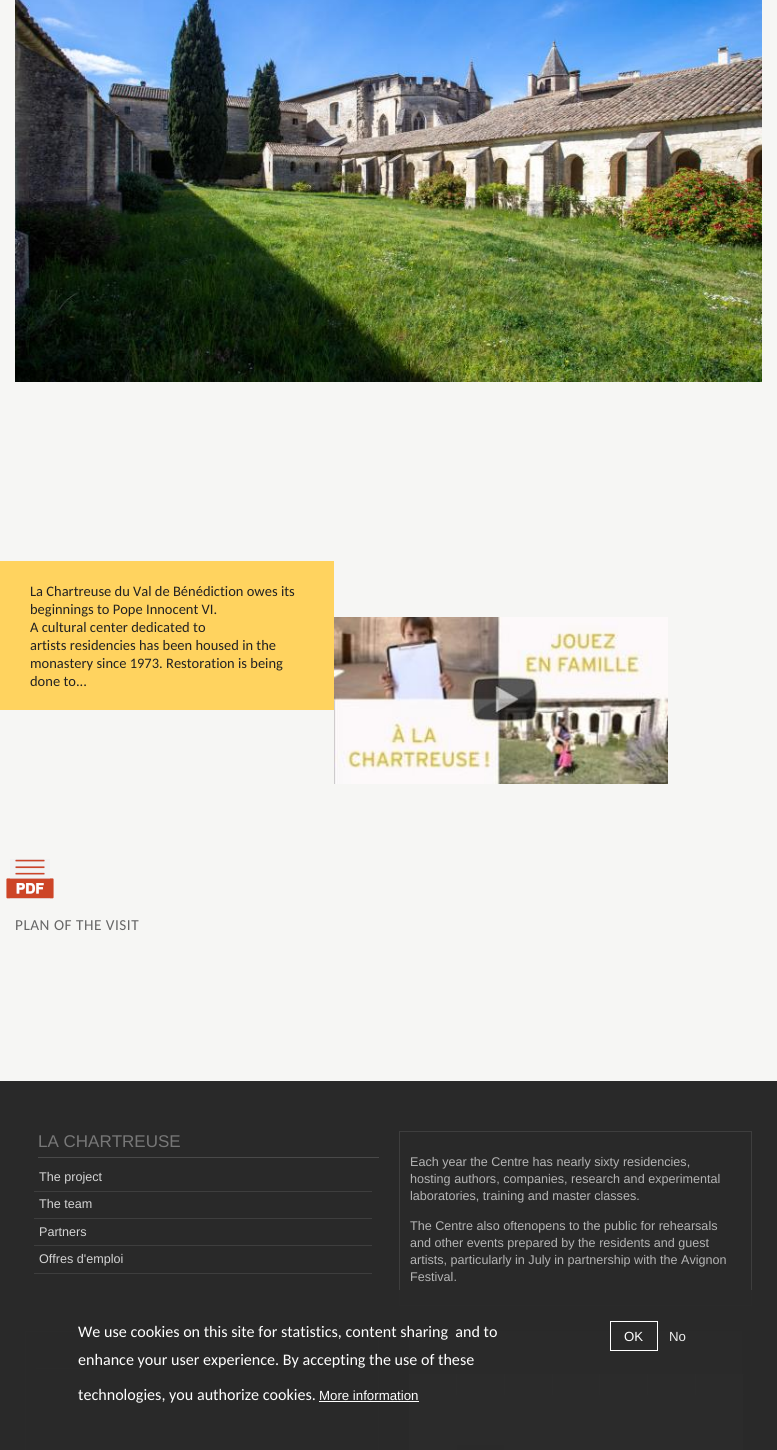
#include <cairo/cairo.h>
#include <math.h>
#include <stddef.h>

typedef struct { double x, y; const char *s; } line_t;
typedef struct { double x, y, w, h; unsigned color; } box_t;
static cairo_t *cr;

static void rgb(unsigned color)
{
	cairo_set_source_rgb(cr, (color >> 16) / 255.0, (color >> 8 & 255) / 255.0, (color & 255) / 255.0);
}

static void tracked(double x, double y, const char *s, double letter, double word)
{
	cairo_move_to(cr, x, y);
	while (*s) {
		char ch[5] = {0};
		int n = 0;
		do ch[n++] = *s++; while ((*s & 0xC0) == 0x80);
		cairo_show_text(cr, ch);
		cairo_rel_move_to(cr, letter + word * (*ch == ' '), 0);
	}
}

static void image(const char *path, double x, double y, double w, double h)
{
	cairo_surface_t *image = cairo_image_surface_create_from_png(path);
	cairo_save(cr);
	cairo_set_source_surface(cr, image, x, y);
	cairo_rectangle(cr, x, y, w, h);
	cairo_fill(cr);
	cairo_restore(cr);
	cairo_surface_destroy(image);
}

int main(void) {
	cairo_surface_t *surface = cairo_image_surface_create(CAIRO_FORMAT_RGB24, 777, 1450);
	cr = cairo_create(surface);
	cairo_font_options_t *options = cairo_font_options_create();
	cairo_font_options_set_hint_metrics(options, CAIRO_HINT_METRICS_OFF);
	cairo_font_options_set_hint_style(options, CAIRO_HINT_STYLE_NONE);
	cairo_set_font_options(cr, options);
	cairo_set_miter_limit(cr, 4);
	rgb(0xf6f6f4);
	cairo_paint(cr);
	image("img/1.png", 15, 0, 747, 382);
	rgb(0xffd35f);
	cairo_rectangle(cr, 0, 561, 334, 149);
	cairo_fill(cr);
	image("img/2.png", 334, 617, 334, 167);
	image("img/3.png", 6, 859, 48, 40);
	{
		static const box_t items[] = {
			{0, 1081, 777, 369, 0x292929},
			{743, 1374, 1, 21, 0x323232},
			{743, 1394, 1, 1, 0x3b3b3b},
			{743, 1374, 1, 1, 0x3b3b3b},
			{38, 1157, 341, 1, 0x494949},
			{34, 1191, 338, 1, 0x3e3e3e},
			{34, 1218, 338, 1, 0x3e3e3e},
			{34, 1245, 338, 1, 0x3e3e3e},
			{34, 1273, 338, 1, 0x3e3e3e},
		};
		for (size_t i = 0; i < sizeof items / sizeof *items; i++) {
			rgb(items[i].color);
			cairo_rectangle(cr, items[i].x, items[i].y, items[i].w, items[i].h);
			cairo_fill(cr);
		}
	}
	cairo_rectangle(cr, 399.5, 1131.5, 352, 174);
	cairo_set_line_width(cr, 1);
	cairo_stroke(cr);
	cairo_rectangle(cr, 25.5, 1331.5, 353, 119);
	cairo_stroke(cr);
	rgb(0x494949);
	cairo_rectangle(cr, 36, 1368, 332, 1);
	cairo_fill(cr);
	rgb(0x3b3b3b);
	cairo_rectangle(cr, 409, 1331, 333, 43);
	cairo_fill(cr);
	rgb(0x545454);
	cairo_rectangle(cr, 410, 1375, 46, 19);
	cairo_fill(cr);
	rgb(0x5b5b5b);
	cairo_rectangle(cr, 409, 1374, 1, 20);
	cairo_fill(cr);
	cairo_rectangle(cr, 409, 1374, 95, 1);
	cairo_fill(cr);
	rgb(0x626262);
	cairo_rectangle(cr, 409, 1374, 1, 1);
	cairo_fill(cr);
	cairo_rectangle(cr, 456, 1374, 1, 20);
	cairo_fill(cr);
	rgb(0x6e6e6e);
	cairo_rectangle(cr, 456, 1374, 1, 1);
	cairo_fill(cr);
	rgb(0x545454);
	cairo_rectangle(cr, 505, 1375, 47, 19);
	cairo_fill(cr);
	rgb(0x626262);
	cairo_rectangle(cr, 504, 1374, 1, 20);
	cairo_fill(cr);
	rgb(0x5b5b5b);
	cairo_rectangle(cr, 504, 1374, 48, 1);
	cairo_fill(cr);
	rgb(0x6e6e6e);
	cairo_rectangle(cr, 504, 1374, 1, 1);
	cairo_fill(cr);
	rgb(0x545454);
	cairo_rectangle(cr, 553, 1375, 46, 19);
	cairo_fill(cr);
	rgb(0x626262);
	cairo_rectangle(cr, 552, 1374, 1, 20);
	cairo_fill(cr);
	rgb(0x5b5b5b);
	cairo_rectangle(cr, 552, 1374, 143, 1);
	cairo_fill(cr);
	rgb(0x6e6e6e);
	cairo_rectangle(cr, 552, 1374, 1, 1);
	cairo_fill(cr);
	rgb(0x626262);
	cairo_rectangle(cr, 599, 1374, 1, 20);
	cairo_fill(cr);
	rgb(0x6e6e6e);
	cairo_rectangle(cr, 599, 1374, 1, 1);
	cairo_fill(cr);
	rgb(0x545454);
	cairo_rectangle(cr, 457, 1375, 47, 19);
	cairo_fill(cr);
	cairo_rectangle(cr, 600, 1375, 47, 19);
	cairo_fill(cr);
	rgb(0x626262);
	cairo_rectangle(cr, 647, 1374, 1, 20);
	cairo_fill(cr);
	rgb(0x6e6e6e);
	cairo_rectangle(cr, 647, 1374, 1, 1);
	cairo_fill(cr);
	rgb(0x545454);
	cairo_rectangle(cr, 648, 1375, 47, 19);
	cairo_fill(cr);
	cairo_rectangle(cr, 696, 1375, 47, 19);
	cairo_fill(cr);
	rgb(0x626262);
	cairo_rectangle(cr, 695, 1374, 1, 20);
	cairo_fill(cr);
	rgb(0x5b5b5b);
	cairo_rectangle(cr, 695, 1374, 48, 1);
	cairo_fill(cr);
	rgb(0x6e6e6e);
	cairo_rectangle(cr, 695, 1374, 1, 1);
	cairo_fill(cr);
	rgb(0x4d4d4d);
	cairo_rectangle(cr, 409, 1395, 334, 55);
	cairo_fill(cr);
	rgb(0x545454);
	cairo_rectangle(cr, 409, 1394, 334, 1);
	cairo_fill(cr);
	rgb(0x5b5b5b);
	cairo_rectangle(cr, 409, 1394, 1, 1);
	cairo_fill(cr);
	rgb(0x686868);
	cairo_rectangle(cr, 456, 1394, 1, 1);
	cairo_fill(cr);
	cairo_rectangle(cr, 504, 1394, 1, 1);
	cairo_fill(cr);
	cairo_rectangle(cr, 552, 1394, 1, 1);
	cairo_fill(cr);
	cairo_rectangle(cr, 599, 1394, 1, 1);
	cairo_fill(cr);
	cairo_rectangle(cr, 647, 1394, 1, 1);
	cairo_fill(cr);
	cairo_rectangle(cr, 695, 1394, 1, 1);
	cairo_fill(cr);
	rgb(0x444444);
	cairo_rectangle(cr, 457, 1445, 47, 5);
	cairo_fill(cr);
	cairo_set_source_rgba(cr, 0.161, 0.161, 0.161, 0.95);
	cairo_rectangle(cr, 25, 1290, 727, 160);
	cairo_fill(cr);
	rgb(0xffffff);
	cairo_rectangle(cr, 319, 1401, 100, 1);
	cairo_fill(cr);
	cairo_rectangle(cr, 610.5, 1321.5, 47, 29);
	cairo_stroke(cr);
	cairo_select_font_face(cr, "Carlito", CAIRO_FONT_SLANT_NORMAL, CAIRO_FONT_WEIGHT_NORMAL);
	cairo_set_font_size(cr, 14.5);
	rgb(0x222222);
	{
		static const line_t items[] = {
			{30, 596, "La Chartreuse du Val de Bénédiction owes its"},
			{30, 614, "beginnings to Pope Innocent VI."},
			{30, 632, "A cultural center dedicated to"},
			{30, 650, "artists residencies has been housed in the"},
			{30, 668, "monastery since 1973. Restoration is being"},
			{30, 686, "done to..."},
		};
		for (size_t i = 0; i < sizeof items / sizeof *items; i++) {
			cairo_move_to(cr, items[i].x, items[i].y);
			cairo_show_text(cr, items[i].s);
		}
	}
	cairo_set_font_size(cr, 15.25);
	rgb(0x666666);
	tracked(15, 930, "PLAN OF THE VISIT", 0.5, 0);
	cairo_select_font_face(cr, "Liberation Sans", CAIRO_FONT_SLANT_NORMAL, CAIRO_FONT_WEIGHT_NORMAL);
	cairo_set_font_size(cr, 17);
	rgb(0x777777);
	cairo_move_to(cr, 38, 1147);
	cairo_show_text(cr, "LA CHARTREUSE");
	cairo_set_font_size(cr, 12.6);
	rgb(0xd4d4d4);
	{
		static const line_t items[] = {
			{39, 1181, "The project"},
			{39, 1208, "The team"},
			{39, 1236, "Partners"},
			{39, 1263, "Offres d'emploi"},
		};
		for (size_t i = 0; i < sizeof items / sizeof *items; i++) {
			cairo_move_to(cr, items[i].x, items[i].y);
			cairo_show_text(cr, items[i].s);
		}
	}
	rgb(0xb4b4b4);
	{
		static const line_t items[] = {
			{410, 1166, "Each year the Centre has nearly sixty residencies,"},
			{410, 1183, "hosting authors, companies, research and experimental"},
			{410, 1200, "laboratories, training and master classes."},
			{410, 1230, "The Centre also oftenopens to the public for rehearsals"},
			{410, 1247, "and other events prepared by the residents and guest"},
			{410, 1264, "artists, particularly in July in partnership with the Avignon"},
			{410, 1281, "Festival."},
		};
		for (size_t i = 0; i < sizeof items / sizeof *items; i++) {
			cairo_move_to(cr, items[i].x, items[i].y);
			cairo_show_text(cr, items[i].s);
		}
	}
	cairo_select_font_face(cr, "Carlito", CAIRO_FONT_SLANT_NORMAL, CAIRO_FONT_WEIGHT_NORMAL);
	cairo_set_font_size(cr, 16.1);
	rgb(0xffffff);
	{
		static const line_t items[] = {
			{78, 1337, "We use cookies on this site for statistics, content sharing  and to"},
			{78, 1365, "enhance your user experience. By accepting the use of these"},
			{78, 1400, "technologies, you authorize cookies."},
		};
		for (size_t i = 0; i < sizeof items / sizeof *items; i++) {
			cairo_move_to(cr, items[i].x, items[i].y);
			cairo_show_text(cr, items[i].s);
		}
	}
	cairo_select_font_face(cr, "Liberation Sans", CAIRO_FONT_SLANT_NORMAL, CAIRO_FONT_WEIGHT_NORMAL);
	cairo_set_font_size(cr, 13.25);
	cairo_move_to(cr, 319, 1400);
	cairo_show_text(cr, "More information");
	cairo_move_to(cr, 624, 1341);
	cairo_show_text(cr, "OK");
	rgb(0xeeeeee);
	cairo_move_to(cr, 669, 1341);
	cairo_show_text(cr, "No");
	cairo_surface_write_to_png(surface, "page.png");
	cairo_font_options_destroy(options);
	cairo_destroy(cr);
	cairo_surface_destroy(surface);
	return 0;
}
